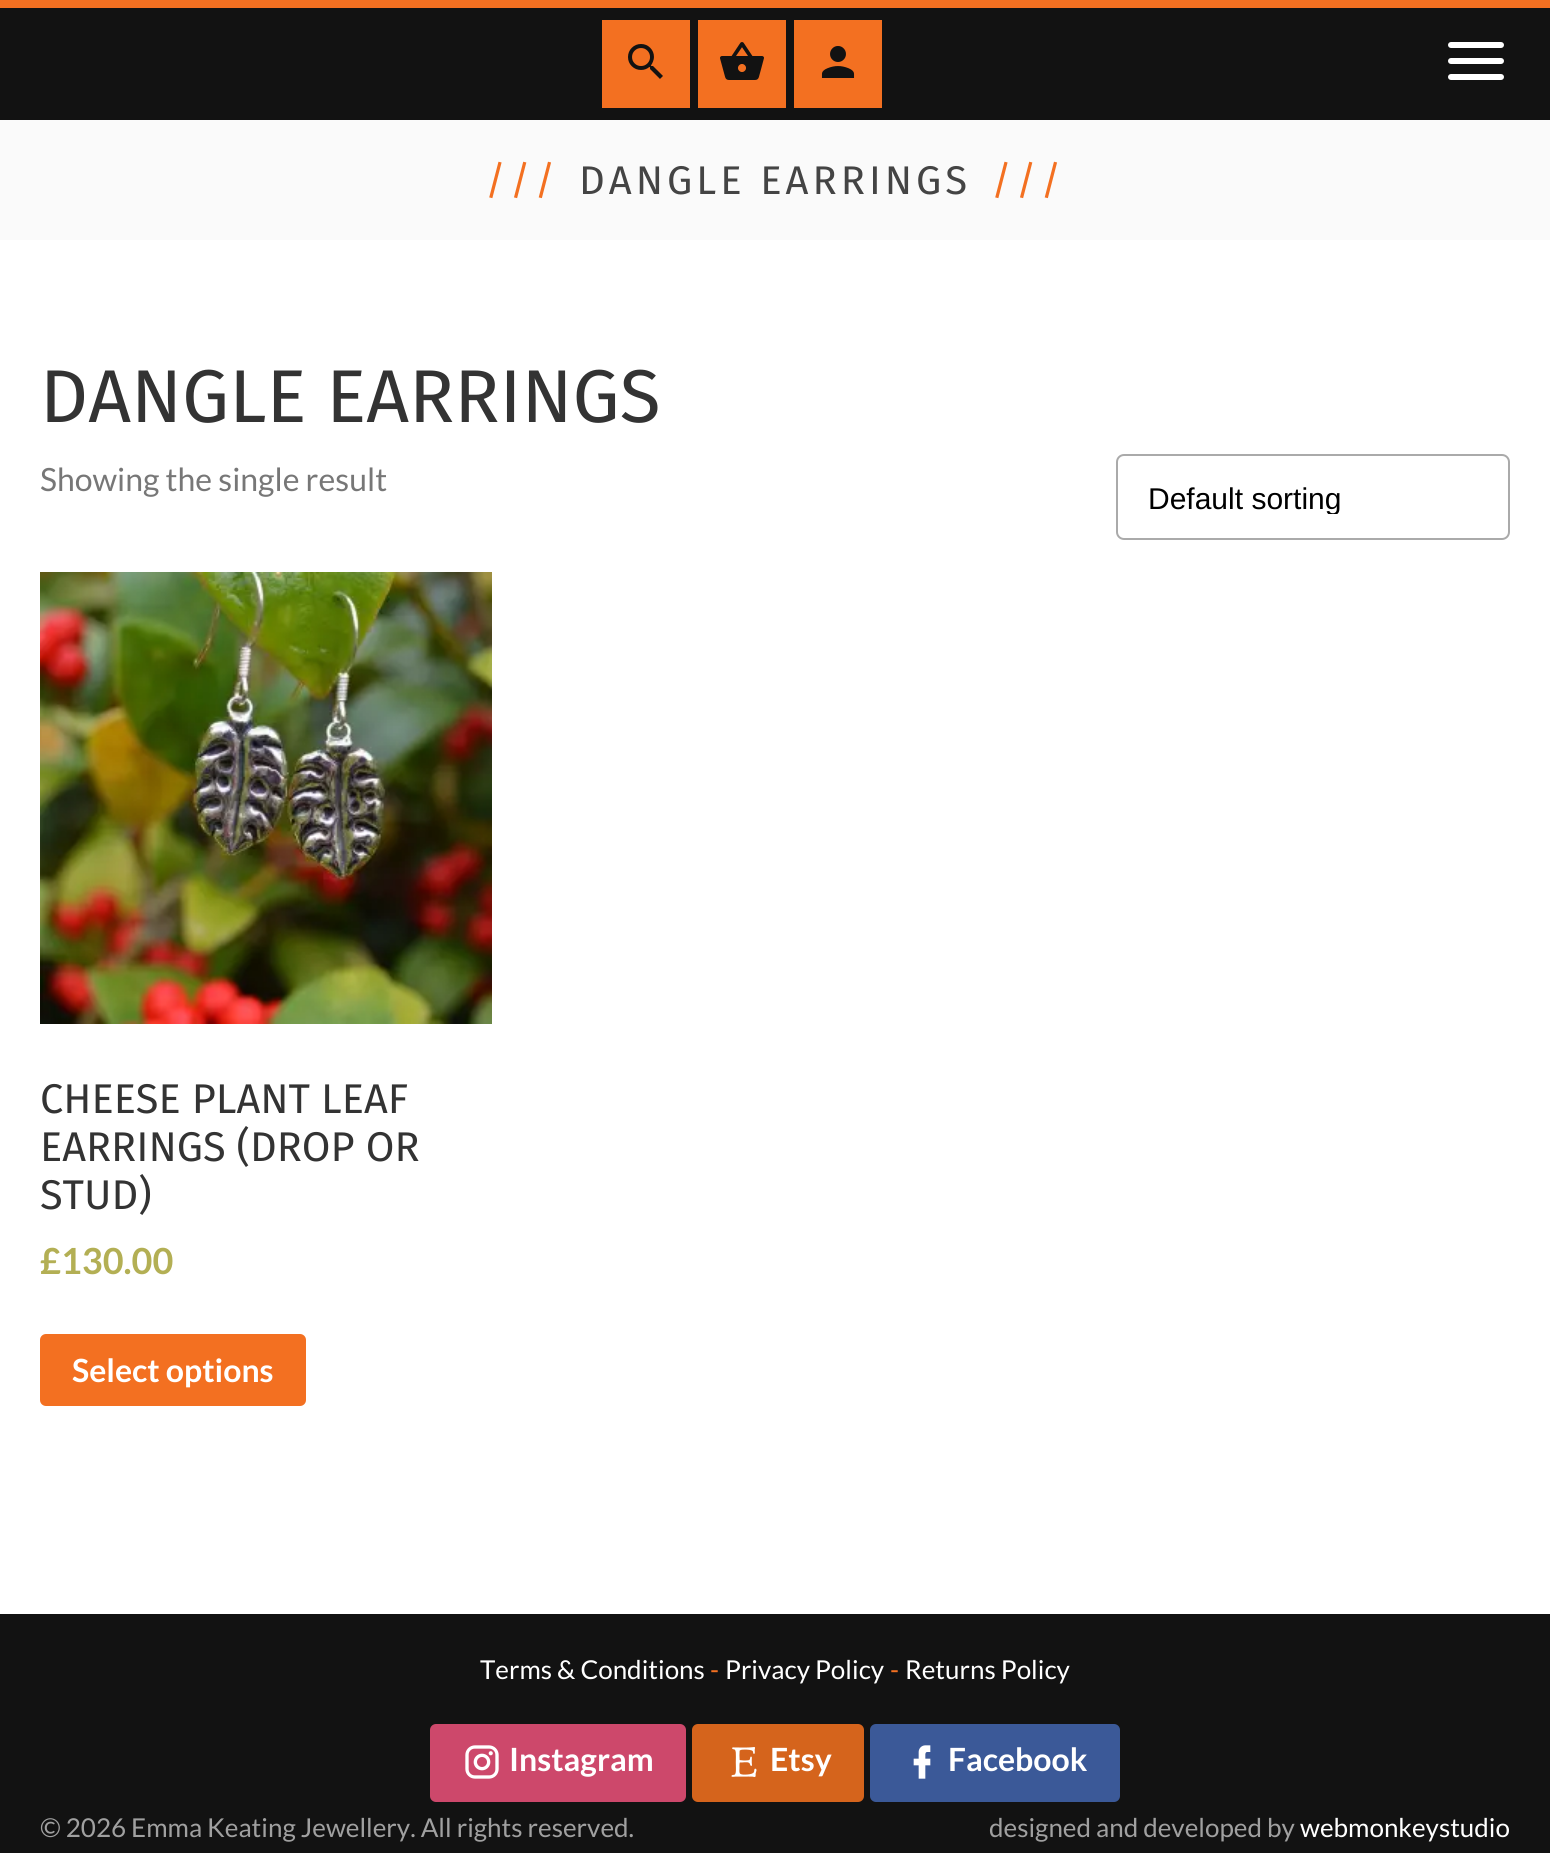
#include <cairo/cairo.h>
#include <math.h>
#include <stddef.h>

typedef struct { double x, y; const char *s; } line_t;
typedef struct { double x, y, w, h; unsigned color; } box_t;
static cairo_t *cr;

static void rgb(unsigned color)
{
	cairo_set_source_rgb(cr, (color >> 16) / 255.0, (color >> 8 & 255) / 255.0, (color & 255) / 255.0);
}

static void tracked(double x, double y, const char *s, double letter, double word)
{
	cairo_move_to(cr, x, y);
	while (*s) {
		char ch[5] = {0};
		int n = 0;
		do ch[n++] = *s++; while ((*s & 0xC0) == 0x80);
		cairo_show_text(cr, ch);
		cairo_rel_move_to(cr, letter + word * (*ch == ' '), 0);
	}
}

static void rrect(double x, double y, double w, double h, double r)
{
	cairo_new_sub_path(cr);
	cairo_arc(cr, x + w - r, y + h - r, r, 0, M_PI / 2);
	cairo_arc(cr, x + r, y + h - r, r, M_PI / 2, M_PI);
	cairo_arc(cr, x + r, y + r, r, M_PI, 1.5 * M_PI);
	cairo_arc(cr, x + w - r, y + r, r, 1.5 * M_PI, 2 * M_PI);
	cairo_close_path(cr);
}

static void image(const char *path, double x, double y, double w, double h)
{
	cairo_surface_t *image = cairo_image_surface_create_from_png(path);
	cairo_save(cr);
	cairo_set_source_surface(cr, image, x, y);
	cairo_rectangle(cr, x, y, w, h);
	cairo_fill(cr);
	cairo_restore(cr);
	cairo_surface_destroy(image);
}

int main(void) {
	cairo_surface_t *surface = cairo_image_surface_create(CAIRO_FORMAT_RGB24, 1550, 1853);
	cr = cairo_create(surface);
	cairo_font_options_t *options = cairo_font_options_create();
	cairo_font_options_set_hint_metrics(options, CAIRO_HINT_METRICS_OFF);
	cairo_font_options_set_hint_style(options, CAIRO_HINT_STYLE_NONE);
	cairo_set_font_options(cr, options);
	cairo_set_miter_limit(cr, 4);
	rgb(0xffffff);
	cairo_paint(cr);
	{
		static const box_t items[] = {
			{0, 8, 1550, 112, 0x121212},
			{0, 0, 1550, 8, 0xf37021},
			{602, 20, 88, 88, 0xf37021},
		};
		for (size_t i = 0; i < sizeof items / sizeof *items; i++) {
			rgb(items[i].color);
			cairo_rectangle(cr, items[i].x, items[i].y, items[i].w, items[i].h);
			cairo_fill(cr);
		}
	}
	image("img/1.png", 628, 44, 35, 35);
	cairo_rectangle(cr, 698, 20, 88, 88);
	cairo_fill(cr);
	image("img/2.png", 720, 42, 44, 38);
	cairo_rectangle(cr, 794, 20, 88, 88);
	cairo_fill(cr);
	image("img/3.png", 821, 46, 34, 32);
	rgb(0xffffff);
	rrect(1448, 42, 56, 6, 3);
	cairo_fill(cr);
	rrect(1448, 58, 56, 6, 3);
	cairo_fill(cr);
	rrect(1448, 74, 56, 6, 3);
	cairo_fill(cr);
	rgb(0xfafafa);
	cairo_rectangle(cr, 0, 120, 1550, 120);
	cairo_fill(cr);
	rrect(1117, 455, 392, 84, 7);
	rgb(0xaaaaaa);
	cairo_stroke(cr);
	image("img/4.png", 40, 572, 452, 452);
	rgb(0xf37021);
	rrect(40, 1334, 266, 72, 6);
	cairo_fill(cr);
	rgb(0x121212);
	cairo_rectangle(cr, 0, 1614, 1550, 239);
	cairo_fill(cr);
	rgb(0xcd486b);
	rrect(430, 1724, 256, 78, 6);
	cairo_fill(cr);
	image("img/5.png", 465, 1745, 34, 34);
	rgb(0xd5641c);
	rrect(692, 1724, 172, 78, 6);
	cairo_fill(cr);
	image("img/6.png", 731, 1747, 26, 30);
	rgb(0x3b5998);
	rrect(870, 1724, 250, 78, 6);
	cairo_fill(cr);
	image("img/7.png", 913, 1745, 18, 34);
	cairo_select_font_face(cr, "Fira Sans", CAIRO_FONT_SLANT_NORMAL, CAIRO_FONT_WEIGHT_NORMAL);
	cairo_set_font_size(cr, 40);
	rgb(0xf37021);
	tracked(485, 194, "///", 4, 0);
	rgb(0x444444);
	tracked(579, 194, "DANGLE EARRINGS", 4, 0);
	rgb(0xf37021);
	tracked(991, 194, "///", 4, 0);
	cairo_set_font_size(cr, 74.75);
	rgb(0x333333);
	cairo_move_to(cr, 40, 422);
	cairo_show_text(cr, "DANGLE EARRINGS");
	cairo_select_font_face(cr, "Lato", CAIRO_FONT_SLANT_NORMAL, CAIRO_FONT_WEIGHT_NORMAL);
	cairo_set_font_size(cr, 32);
	rgb(0x777777);
	cairo_move_to(cr, 40, 491);
	cairo_show_text(cr, "Showing the single result");
	cairo_save(cr);
	cairo_rectangle(cr, 1148, 480, 330, 34);
	cairo_clip(cr);
	cairo_select_font_face(cr, "Liberation Sans", CAIRO_FONT_SLANT_NORMAL, CAIRO_FONT_WEIGHT_NORMAL);
	cairo_set_font_size(cr, 30);
	rgb(0x000000);
	cairo_move_to(cr, 1148, 509);
	cairo_show_text(cr, "Default sorting");
	cairo_restore(cr);
	cairo_select_font_face(cr, "Fira Sans", CAIRO_FONT_SLANT_NORMAL, CAIRO_FONT_WEIGHT_NORMAL);
	cairo_set_font_size(cr, 41.5);
	rgb(0x333333);
	{
		static const line_t items[] = {
			{40, 1113, "CHEESE PLANT LEAF"},
			{40, 1161, "EARRINGS (DROP OR"},
			{40, 1209, "STUD)"},
		};
		for (size_t i = 0; i < sizeof items / sizeof *items; i++) {
			cairo_move_to(cr, items[i].x, items[i].y);
			cairo_show_text(cr, items[i].s);
		}
	}
	cairo_select_font_face(cr, "Lato", CAIRO_FONT_SLANT_NORMAL, CAIRO_FONT_WEIGHT_BOLD);
	cairo_set_font_size(cr, 36);
	rgb(0xb3af54);
	cairo_move_to(cr, 40, 1274);
	cairo_show_text(cr, "£130.00");
	cairo_set_font_size(cr, 32);
	rgb(0xffffff);
	cairo_move_to(cr, 72, 1382);
	cairo_show_text(cr, "Select options");
	cairo_select_font_face(cr, "Lato", CAIRO_FONT_SLANT_NORMAL, CAIRO_FONT_WEIGHT_NORMAL);
	cairo_set_font_size(cr, 26);
	cairo_move_to(cr, 480, 1679);
	cairo_show_text(cr, "Terms & Conditions");
	rgb(0xf37021);
	cairo_move_to(cr, 710, 1679);
	cairo_show_text(cr, "-");
	rgb(0xffffff);
	cairo_move_to(cr, 725, 1679);
	cairo_show_text(cr, "Privacy Policy");
	rgb(0xf37021);
	cairo_move_to(cr, 890, 1679);
	cairo_show_text(cr, "-");
	rgb(0xffffff);
	cairo_move_to(cr, 905, 1679);
	cairo_show_text(cr, "Returns Policy");
	cairo_select_font_face(cr, "Lato", CAIRO_FONT_SLANT_NORMAL, CAIRO_FONT_WEIGHT_BOLD);
	cairo_set_font_size(cr, 32);
	{
		static const line_t items[] = {
			{509, 1771, "Instagram"},
			{770, 1771, "Etsy"},
			{948, 1771, "Facebook"},
		};
		for (size_t i = 0; i < sizeof items / sizeof *items; i++) {
			cairo_move_to(cr, items[i].x, items[i].y);
			cairo_show_text(cr, items[i].s);
		}
	}
	cairo_select_font_face(cr, "Lato", CAIRO_FONT_SLANT_NORMAL, CAIRO_FONT_WEIGHT_NORMAL);
	cairo_set_font_size(cr, 26);
	rgb(0xa0a0a0);
	cairo_move_to(cr, 40, 1837);
	cairo_show_text(cr, "© 2026 Emma Keating Jewellery. All rights reserved.");
	cairo_move_to(cr, 989, 1837);
	cairo_show_text(cr, "designed and developed by");
	rgb(0xffffff);
	cairo_move_to(cr, 1300, 1837);
	cairo_show_text(cr, "webmonkeystudio");
	cairo_surface_write_to_png(surface, "page.png");
	cairo_font_options_destroy(options);
	cairo_destroy(cr);
	cairo_surface_destroy(surface);
	return 0;
}
